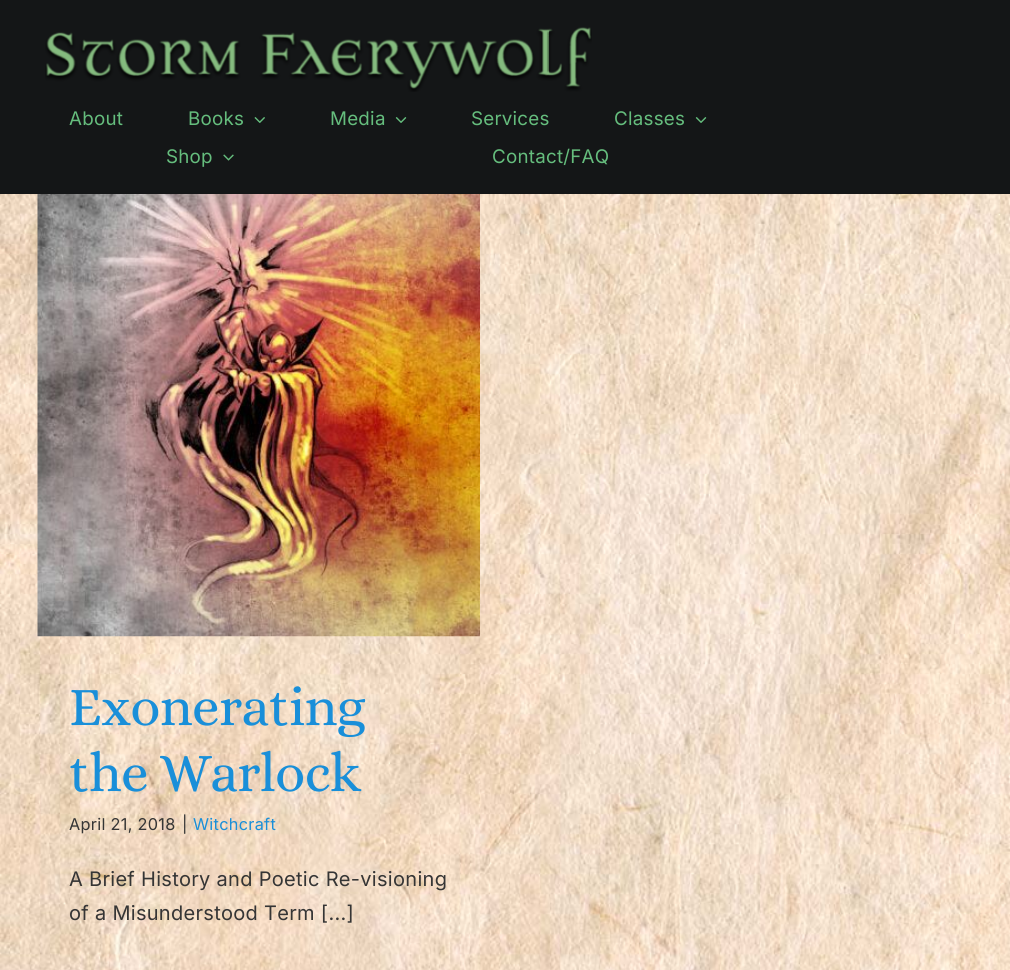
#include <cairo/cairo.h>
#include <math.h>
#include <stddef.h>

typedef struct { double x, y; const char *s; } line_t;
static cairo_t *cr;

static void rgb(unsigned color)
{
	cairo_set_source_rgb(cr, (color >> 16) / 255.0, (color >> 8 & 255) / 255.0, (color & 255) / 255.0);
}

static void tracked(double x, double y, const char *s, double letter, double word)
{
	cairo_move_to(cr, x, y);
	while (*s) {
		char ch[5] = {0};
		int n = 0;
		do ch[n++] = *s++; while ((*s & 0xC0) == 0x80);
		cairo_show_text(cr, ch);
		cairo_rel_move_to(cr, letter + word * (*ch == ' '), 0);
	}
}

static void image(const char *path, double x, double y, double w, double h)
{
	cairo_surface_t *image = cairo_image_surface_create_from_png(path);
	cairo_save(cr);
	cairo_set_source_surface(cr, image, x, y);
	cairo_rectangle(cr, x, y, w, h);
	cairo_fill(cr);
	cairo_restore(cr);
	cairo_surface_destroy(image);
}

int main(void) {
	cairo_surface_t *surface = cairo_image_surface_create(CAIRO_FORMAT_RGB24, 1010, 970);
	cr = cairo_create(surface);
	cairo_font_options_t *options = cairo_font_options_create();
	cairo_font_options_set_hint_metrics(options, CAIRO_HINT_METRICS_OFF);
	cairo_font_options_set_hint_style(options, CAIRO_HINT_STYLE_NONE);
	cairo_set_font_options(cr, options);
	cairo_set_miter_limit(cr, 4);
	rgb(0xffffff);
	cairo_paint(cr);
	rgb(0x141617);
	cairo_rectangle(cr, 0, 0, 1010, 194);
	cairo_fill(cr);
	image("img/1.png", 45, 27, 547, 65);
	image("img/2.png", 254, 117, 11, 6);
	image("img/3.png", 395, 117, 12, 6);
	image("img/3.png", 695, 117, 12, 6);
	image("img/4.png", 223, 154, 11, 7);
	image("img/5.png", 0, 194, 1010, 776);
	image("img/6.png", 37, 194, 443, 443);
	cairo_select_font_face(cr, "Inter", CAIRO_FONT_SLANT_NORMAL, CAIRO_FONT_WEIGHT_NORMAL);
	cairo_set_font_size(cr, 18.75);
	rgb(0x65bd7d);
	{
		static const line_t items[] = {
			{69, 125, "About"},
			{188, 125, "Books"},
			{330, 125, "Media"},
			{471, 125, "Services"},
			{614, 125, "Classes"},
			{166, 163, "Shop"},
			{492, 163, "Contact/FAQ"},
		};
		for (size_t i = 0; i < sizeof items / sizeof *items; i++) {
			tracked(items[i].x, items[i].y, items[i].s, 0.25, 0);
		}
	}
	cairo_select_font_face(cr, "Alice", CAIRO_FONT_SLANT_NORMAL, CAIRO_FONT_WEIGHT_NORMAL);
	cairo_set_font_size(cr, 55.25);
	rgb(0x198fd9);
	tracked(69, 725, "Exonerating", -0.75, 0);
	tracked(69, 791, "the Warlock", -0.75, 0);
	cairo_select_font_face(cr, "Inter", CAIRO_FONT_SLANT_NORMAL, CAIRO_FONT_WEIGHT_NORMAL);
	cairo_set_font_size(cr, 16.25);
	rgb(0x353535);
	tracked(69, 830, "April 21, 2018", 0.3, 0);
	tracked(182, 830, "|", 0.3, 0);
	rgb(0x198fd9);
	tracked(193, 830, "Witchcraft", 0.3, 0);
	cairo_set_font_size(cr, 20);
	rgb(0x353535);
	tracked(69, 886, "A Brief History and Poetic Re-visioning", 0.3, 0);
	tracked(69, 920, "of a Misunderstood Term [...]", 0.3, 0);
	cairo_surface_write_to_png(surface, "page.png");
	cairo_font_options_destroy(options);
	cairo_destroy(cr);
	cairo_surface_destroy(surface);
	return 0;
}
